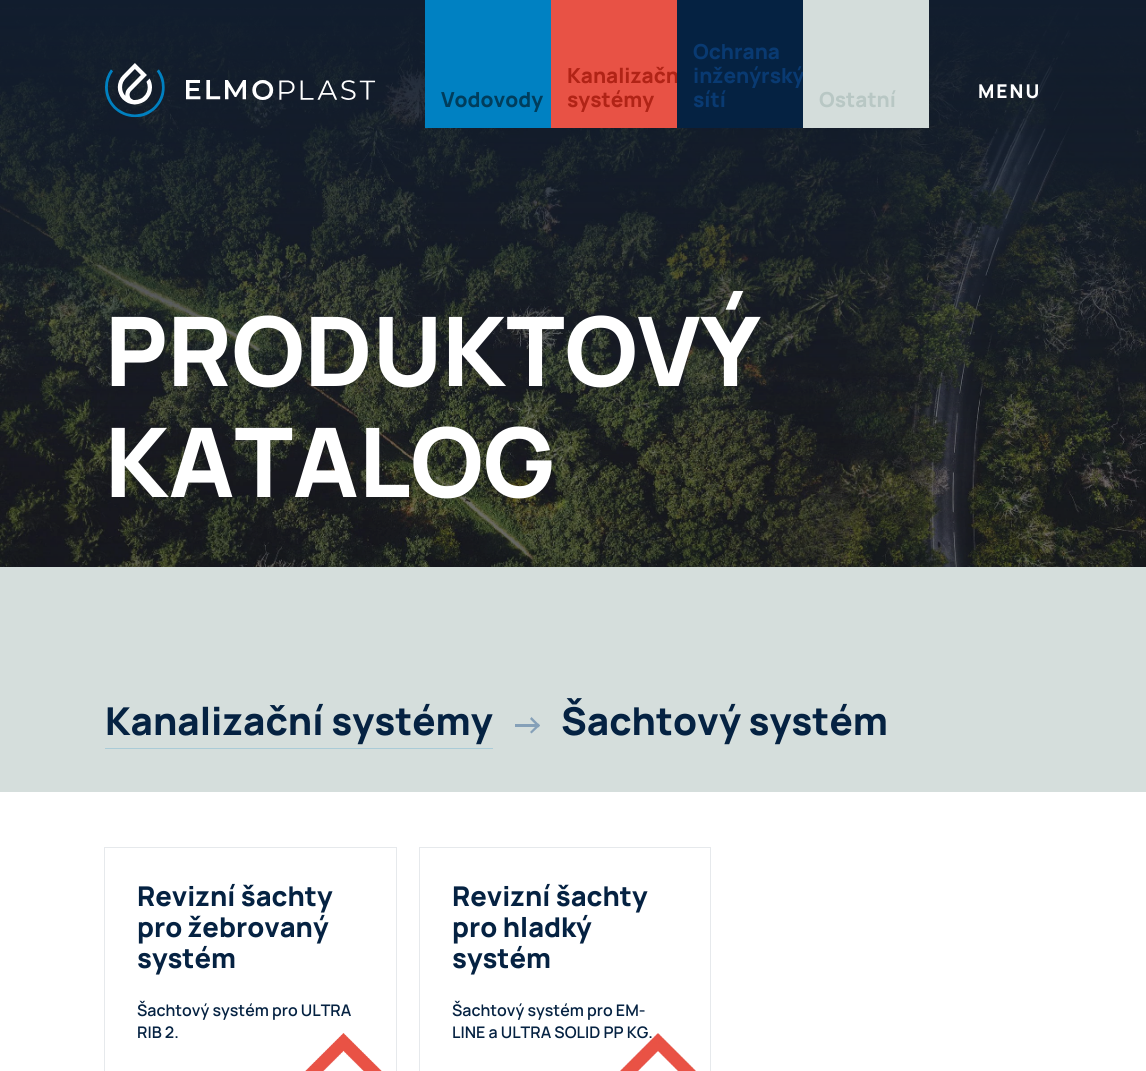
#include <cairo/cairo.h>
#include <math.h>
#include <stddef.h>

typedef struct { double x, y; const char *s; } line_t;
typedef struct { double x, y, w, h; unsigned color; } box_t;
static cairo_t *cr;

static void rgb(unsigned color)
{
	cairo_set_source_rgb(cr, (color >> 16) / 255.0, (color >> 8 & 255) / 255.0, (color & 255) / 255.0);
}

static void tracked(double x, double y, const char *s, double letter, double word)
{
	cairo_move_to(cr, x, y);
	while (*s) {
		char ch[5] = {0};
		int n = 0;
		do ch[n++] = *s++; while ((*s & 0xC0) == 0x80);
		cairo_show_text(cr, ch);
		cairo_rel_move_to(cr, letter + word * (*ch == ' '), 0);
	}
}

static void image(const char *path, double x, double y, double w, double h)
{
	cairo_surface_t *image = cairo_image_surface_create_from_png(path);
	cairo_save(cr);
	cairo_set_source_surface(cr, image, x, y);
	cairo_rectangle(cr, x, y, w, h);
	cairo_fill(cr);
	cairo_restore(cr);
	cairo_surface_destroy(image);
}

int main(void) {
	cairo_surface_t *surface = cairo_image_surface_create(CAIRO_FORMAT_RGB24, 1146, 1071);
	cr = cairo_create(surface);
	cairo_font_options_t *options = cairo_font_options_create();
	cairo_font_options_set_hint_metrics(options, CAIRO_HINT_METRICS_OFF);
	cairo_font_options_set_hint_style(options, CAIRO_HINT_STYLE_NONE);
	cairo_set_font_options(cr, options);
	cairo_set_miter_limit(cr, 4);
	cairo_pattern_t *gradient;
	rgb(0x080c10);
	cairo_paint(cr);
	image("img/2.png", 0, 3, 1146, 564);
	gradient = cairo_pattern_create_linear(573, 1070, 573, 320);
	cairo_pattern_add_color_stop_rgba(gradient, 0, 0.047, 0.071, 0.094, 0.83);
	cairo_pattern_add_color_stop_rgba(gradient, 1, 0.047, 0.071, 0.094, 0);
	cairo_set_source(cr, gradient);
	cairo_pattern_destroy(gradient);
	cairo_rectangle(cr, 0, 339, 1146, 228);
	cairo_fill(cr);
	gradient = cairo_pattern_create_linear(573, 0, 573, 480);
	cairo_pattern_add_color_stop_rgba(gradient, 0, 0.067, 0.114, 0.18, 1);
	cairo_pattern_add_color_stop_rgba(gradient, 1, 0.067, 0.114, 0.18, 0);
	cairo_set_source(cr, gradient);
	cairo_pattern_destroy(gradient);
	cairo_rectangle(cr, 0, 0, 1146, 470);
	cairo_fill(cr);
	image("img/1.png", 105, 63, 271, 55);
	{
		static const box_t items[] = {
			{425, 0, 126, 128, 0x0081c2},
			{551, 0, 126, 128, 0xe85245},
			{0, 567, 1146, 225, 0xd5dedc},
			{105, 748, 388, 1, 0xaacbd7},
			{515, 724, 24, 3, 0x85a0b8},
		};
		for (size_t i = 0; i < sizeof items / sizeof *items; i++) {
			rgb(items[i].color);
			cairo_rectangle(cr, items[i].x, items[i].y, items[i].w, items[i].h);
			cairo_fill(cr);
		}
	}
	cairo_new_path(cr);
	cairo_move_to(cr, 530, 732);
	cairo_line_to(cr, 538.5, 723.5);
	cairo_line_to(cr, 540, 725.5);
	cairo_line_to(cr, 531.5, 733.5);
	cairo_close_path(cr);
	cairo_fill(cr);
	cairo_new_path(cr);
	cairo_move_to(cr, 531.5, 717);
	cairo_line_to(cr, 540, 725.5);
	cairo_line_to(cr, 538.5, 727.5);
	cairo_line_to(cr, 530, 719);
	cairo_close_path(cr);
	cairo_fill(cr);
	rgb(0xffffff);
	cairo_rectangle(cr, 0, 792, 1146, 279);
	cairo_fill(cr);
	cairo_rectangle(cr, 104.5, 847.5, 292, 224);
	rgb(0xe6e9ec);
	cairo_set_line_width(cr, 1);
	cairo_stroke(cr);
	image("img/3.png", 305, 1033, 77, 38);
	cairo_rectangle(cr, 419.5, 847.5, 291, 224);
	cairo_stroke(cr);
	image("img/4.png", 620, 1033, 76, 38);
	cairo_select_font_face(cr, "Manrope ExtraBold", CAIRO_FONT_SLANT_NORMAL, CAIRO_FONT_WEIGHT_NORMAL);
	cairo_set_font_size(cr, 20.75);
	rgb(0x003d5c);
	cairo_move_to(cr, 441, 107);
	cairo_show_text(cr, "Vodovody");
	rgb(0xb12316);
	cairo_move_to(cr, 567, 83);
	cairo_show_text(cr, "Kanalizačn");
	cairo_move_to(cr, 567, 107);
	cairo_show_text(cr, "systémy");
	rgb(0x052242);
	cairo_rectangle(cr, 677, 0, 126, 128);
	cairo_fill(cr);
	rgb(0x093a72);
	{
		static const line_t items[] = {
			{693, 59, "Ochrana"},
			{693, 83, "inženýrský"},
			{693, 107, "sítí"},
		};
		for (size_t i = 0; i < sizeof items / sizeof *items; i++) {
			cairo_move_to(cr, items[i].x, items[i].y);
			cairo_show_text(cr, items[i].s);
		}
	}
	rgb(0xd4dddb);
	cairo_rectangle(cr, 803, 0, 126, 128);
	cairo_fill(cr);
	rgb(0xb8c7c4);
	cairo_move_to(cr, 819, 107);
	cairo_show_text(cr, "Ostatní");
	cairo_set_font_size(cr, 19);
	rgb(0xffffff);
	tracked(978, 98, "MENU", 2, 0);
	cairo_set_font_size(cr, 96);
	cairo_move_to(cr, 105, 386);
	cairo_show_text(cr, "PRODUKTOVÝ");
	cairo_move_to(cr, 105, 497);
	cairo_show_text(cr, "KATALOG");
	cairo_set_font_size(cr, 38.4);
	rgb(0x052242);
	cairo_move_to(cr, 105, 735);
	cairo_show_text(cr, "Kanalizační systémy");
	cairo_move_to(cr, 561, 735);
	cairo_show_text(cr, "Šachtový systém");
	cairo_set_font_size(cr, 27.25);
	{
		static const line_t items[] = {
			{137, 906, "Revizní šachty"},
			{137, 937, "pro žebrovaný"},
			{137, 968, "systém"},
		};
		for (size_t i = 0; i < sizeof items / sizeof *items; i++) {
			cairo_move_to(cr, items[i].x, items[i].y);
			cairo_show_text(cr, items[i].s);
		}
	}
	cairo_select_font_face(cr, "Manrope SemiBold", CAIRO_FONT_SLANT_NORMAL, CAIRO_FONT_WEIGHT_NORMAL);
	cairo_set_font_size(cr, 16);
	cairo_move_to(cr, 137, 1016);
	cairo_show_text(cr, "Šachtový systém pro ULTRA");
	cairo_move_to(cr, 137, 1038);
	cairo_show_text(cr, "RIB 2.");
	cairo_select_font_face(cr, "Manrope ExtraBold", CAIRO_FONT_SLANT_NORMAL, CAIRO_FONT_WEIGHT_NORMAL);
	cairo_set_font_size(cr, 27.25);
	{
		static const line_t items[] = {
			{452, 906, "Revizní šachty"},
			{452, 937, "pro hladký"},
			{452, 968, "systém"},
		};
		for (size_t i = 0; i < sizeof items / sizeof *items; i++) {
			cairo_move_to(cr, items[i].x, items[i].y);
			cairo_show_text(cr, items[i].s);
		}
	}
	cairo_select_font_face(cr, "Manrope SemiBold", CAIRO_FONT_SLANT_NORMAL, CAIRO_FONT_WEIGHT_NORMAL);
	cairo_set_font_size(cr, 16);
	cairo_move_to(cr, 452, 1016);
	cairo_show_text(cr, "Šachtový systém pro EM-");
	cairo_move_to(cr, 452, 1038);
	cairo_show_text(cr, "LINE a ULTRA SOLID PP KG.");
	cairo_surface_write_to_png(surface, "page.png");
	cairo_font_options_destroy(options);
	cairo_destroy(cr);
	cairo_surface_destroy(surface);
	return 0;
}
